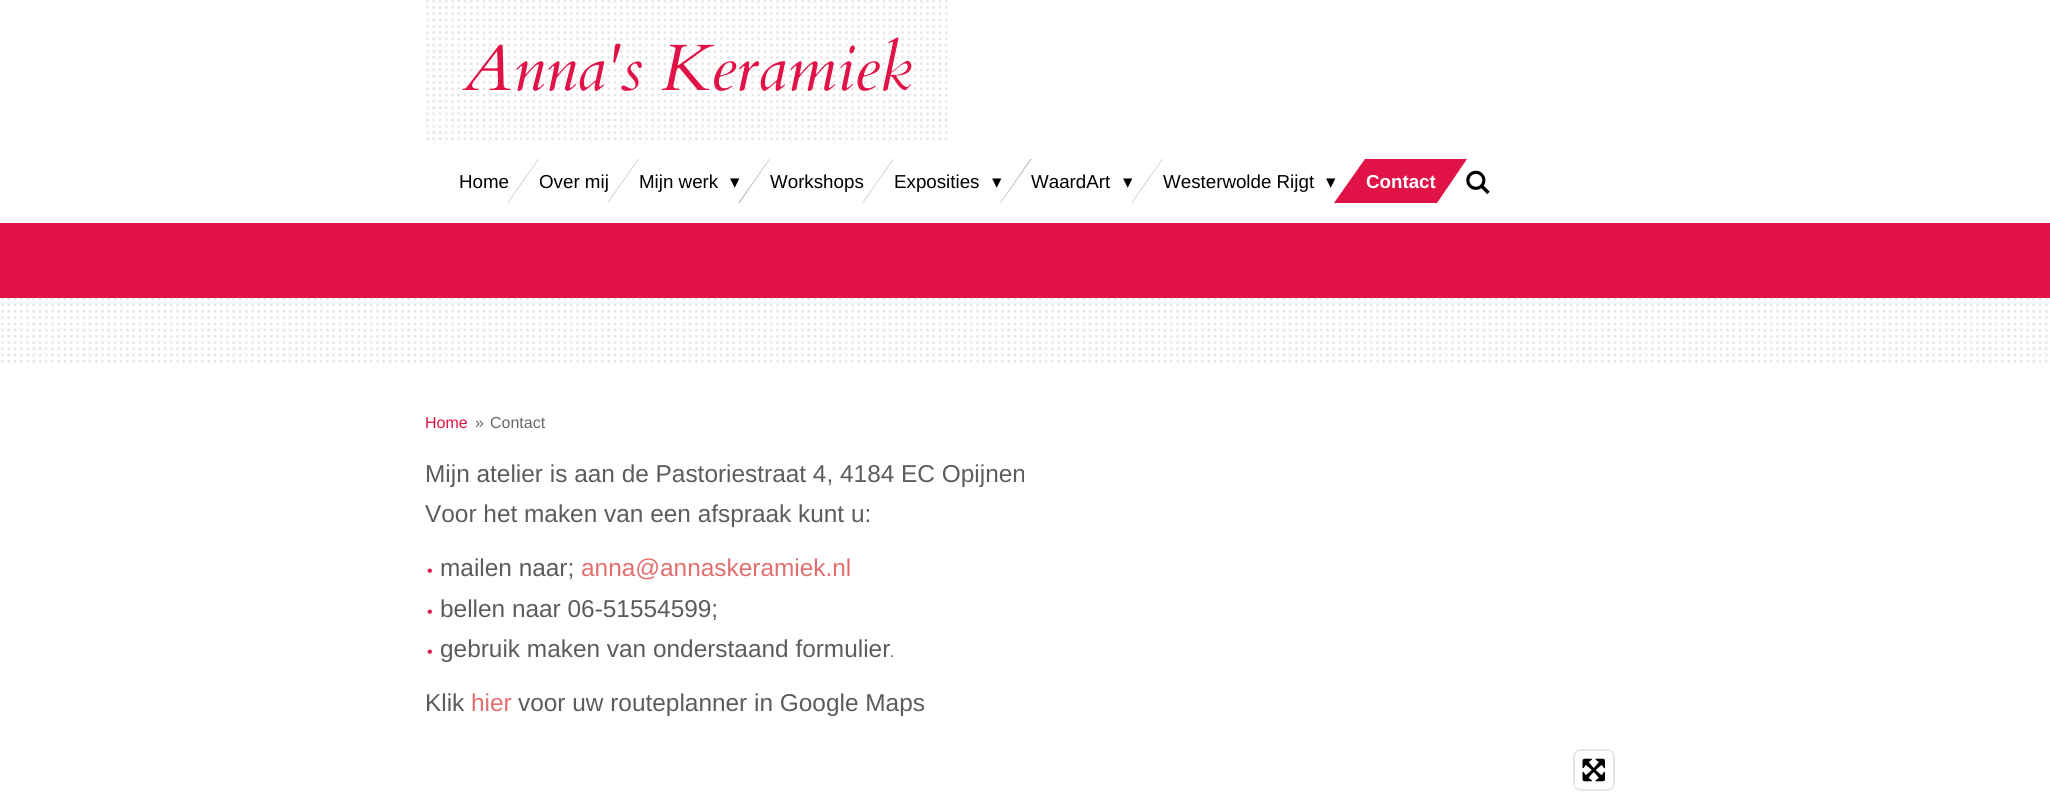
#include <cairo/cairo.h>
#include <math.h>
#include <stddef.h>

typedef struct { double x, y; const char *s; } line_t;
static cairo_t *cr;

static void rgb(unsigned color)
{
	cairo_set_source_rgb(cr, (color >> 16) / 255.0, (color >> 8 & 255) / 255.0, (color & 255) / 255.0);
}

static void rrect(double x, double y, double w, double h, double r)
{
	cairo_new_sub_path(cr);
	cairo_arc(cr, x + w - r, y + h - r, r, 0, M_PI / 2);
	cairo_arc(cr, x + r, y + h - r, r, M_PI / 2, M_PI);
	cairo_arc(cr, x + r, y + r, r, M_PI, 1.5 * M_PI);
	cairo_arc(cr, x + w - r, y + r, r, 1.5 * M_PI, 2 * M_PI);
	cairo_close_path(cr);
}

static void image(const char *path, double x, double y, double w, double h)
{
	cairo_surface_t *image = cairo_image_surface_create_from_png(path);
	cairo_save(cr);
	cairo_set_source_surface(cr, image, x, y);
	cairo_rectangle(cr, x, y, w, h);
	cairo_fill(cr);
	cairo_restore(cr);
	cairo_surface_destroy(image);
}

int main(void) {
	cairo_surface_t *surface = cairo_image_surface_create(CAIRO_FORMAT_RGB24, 2050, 811);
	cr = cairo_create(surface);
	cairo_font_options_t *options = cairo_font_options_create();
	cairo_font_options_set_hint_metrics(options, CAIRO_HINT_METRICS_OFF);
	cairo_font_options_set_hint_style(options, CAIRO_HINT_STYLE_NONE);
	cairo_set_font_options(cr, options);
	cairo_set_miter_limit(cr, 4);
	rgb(0xffffff);
	cairo_paint(cr);
	rgb(0xe11246);
	cairo_rectangle(cr, 0, 223, 2050, 75);
	cairo_fill(cr);
	cairo_new_path(cr);
	cairo_move_to(cr, 855, 298);
	cairo_line_to(cr, 855, 222);
	cairo_line_to(cr, 930, 298);
	cairo_close_path(cr);
	cairo_fill(cr);
	rgb(0xffffff);
	cairo_rectangle(cr, 855, 222, 1, 1);
	cairo_fill(cr);
	image("img/1.png", 426, 0, 522, 140);
	rgb(0xcccccc);
	cairo_new_path(cr);
	cairo_move_to(cr, 538, 159);
	cairo_line_to(cr, 539, 159);
	cairo_line_to(cr, 508, 203);
	cairo_line_to(cr, 507, 203);
	cairo_close_path(cr);
	cairo_fill(cr);
	cairo_new_path(cr);
	cairo_move_to(cr, 638, 159);
	cairo_line_to(cr, 639, 159);
	cairo_line_to(cr, 608, 203);
	cairo_line_to(cr, 607, 203);
	cairo_close_path(cr);
	cairo_fill(cr);
	cairo_new_path(cr);
	cairo_move_to(cr, 769, 159);
	cairo_line_to(cr, 770, 159);
	cairo_line_to(cr, 740, 203);
	cairo_line_to(cr, 738, 203);
	cairo_close_path(cr);
	cairo_fill(cr);
	cairo_new_path(cr);
	cairo_move_to(cr, 893, 159);
	cairo_line_to(cr, 894, 159);
	cairo_line_to(cr, 863, 203);
	cairo_line_to(cr, 862, 203);
	cairo_close_path(cr);
	cairo_fill(cr);
	cairo_new_path(cr);
	cairo_move_to(cr, 1030, 159);
	cairo_line_to(cr, 1032, 159);
	cairo_line_to(cr, 1001, 203);
	cairo_line_to(cr, 1000, 203);
	cairo_close_path(cr);
	cairo_fill(cr);
	cairo_new_path(cr);
	cairo_move_to(cr, 1162, 159);
	cairo_line_to(cr, 1163, 159);
	cairo_line_to(cr, 1132, 203);
	cairo_line_to(cr, 1131, 203);
	cairo_close_path(cr);
	cairo_fill(cr);
	cairo_new_path(cr);
	cairo_move_to(cr, 1365, 159);
	cairo_line_to(cr, 1366, 159);
	cairo_line_to(cr, 1335, 203);
	cairo_line_to(cr, 1334, 203);
	cairo_close_path(cr);
	cairo_fill(cr);
	image("img/2.png", 1466, 170, 24, 25);
	image("img/3.png", 1, 298, 2047, 65);
	rrect(1574.5, 750.5, 39, 39, 6.5);
	rgb(0xe6e6e6);
	cairo_set_line_width(cr, 3);
	cairo_stroke(cr);
	rgb(0xffffff);
	rrect(1575, 751, 38, 38, 5);
	cairo_fill(cr);
	image("img/4.png", 1582, 758, 23, 24);
	cairo_select_font_face(cr, "Cardo", CAIRO_FONT_SLANT_ITALIC, CAIRO_FONT_WEIGHT_NORMAL);
	cairo_set_font_size(cr, 65.5);
	rgb(0xe11246);
	cairo_move_to(cr, 463, 90);
	cairo_show_text(cr, "Anna's Keramiek");
	cairo_select_font_face(cr, "Liberation Sans", CAIRO_FONT_SLANT_NORMAL, CAIRO_FONT_WEIGHT_NORMAL);
	cairo_set_font_size(cr, 18.75);
	rgb(0x000000);
	{
		static const line_t items[] = {
			{459, 188, "Home"},
			{539, 188, "Over mij"},
			{639, 188, "Mijn werk"},
		};
		for (size_t i = 0; i < sizeof items / sizeof *items; i++) {
			cairo_move_to(cr, items[i].x, items[i].y);
			cairo_show_text(cr, items[i].s);
		}
	}
	cairo_select_font_face(cr, "DejaVu Sans", CAIRO_FONT_SLANT_NORMAL, CAIRO_FONT_WEIGHT_NORMAL);
	cairo_move_to(cr, 730, 188);
	cairo_show_text(cr, "▾");
	cairo_select_font_face(cr, "Liberation Sans", CAIRO_FONT_SLANT_NORMAL, CAIRO_FONT_WEIGHT_NORMAL);
	cairo_move_to(cr, 770, 188);
	cairo_show_text(cr, "Workshops");
	cairo_move_to(cr, 894, 188);
	cairo_show_text(cr, "Exposities");
	cairo_select_font_face(cr, "DejaVu Sans", CAIRO_FONT_SLANT_NORMAL, CAIRO_FONT_WEIGHT_NORMAL);
	cairo_move_to(cr, 992, 188);
	cairo_show_text(cr, "▾");
	cairo_select_font_face(cr, "Liberation Sans", CAIRO_FONT_SLANT_NORMAL, CAIRO_FONT_WEIGHT_NORMAL);
	cairo_move_to(cr, 1031, 188);
	cairo_show_text(cr, "WaardArt");
	cairo_select_font_face(cr, "DejaVu Sans", CAIRO_FONT_SLANT_NORMAL, CAIRO_FONT_WEIGHT_NORMAL);
	cairo_move_to(cr, 1123, 188);
	cairo_show_text(cr, "▾");
	cairo_select_font_face(cr, "Liberation Sans", CAIRO_FONT_SLANT_NORMAL, CAIRO_FONT_WEIGHT_NORMAL);
	cairo_move_to(cr, 1163, 188);
	cairo_show_text(cr, "Westerwolde Rijgt");
	cairo_select_font_face(cr, "DejaVu Sans", CAIRO_FONT_SLANT_NORMAL, CAIRO_FONT_WEIGHT_NORMAL);
	cairo_move_to(cr, 1326, 188);
	cairo_show_text(cr, "▾");
	rgb(0xe11246);
	cairo_new_path(cr);
	cairo_move_to(cr, 1365, 159);
	cairo_line_to(cr, 1467, 159);
	cairo_line_to(cr, 1437, 203);
	cairo_line_to(cr, 1334, 203);
	cairo_close_path(cr);
	cairo_fill(cr);
	cairo_select_font_face(cr, "Liberation Sans", CAIRO_FONT_SLANT_NORMAL, CAIRO_FONT_WEIGHT_BOLD);
	rgb(0xffffff);
	cairo_move_to(cr, 1366, 188);
	cairo_show_text(cr, "Contact");
	cairo_select_font_face(cr, "Liberation Sans", CAIRO_FONT_SLANT_NORMAL, CAIRO_FONT_WEIGHT_NORMAL);
	cairo_set_font_size(cr, 16);
	rgb(0xe11246);
	cairo_move_to(cr, 425, 428);
	cairo_show_text(cr, "Home");
	rgb(0x666666);
	cairo_move_to(cr, 475, 428);
	cairo_show_text(cr, "»");
	cairo_move_to(cr, 490, 428);
	cairo_show_text(cr, "Contact");
	cairo_set_font_size(cr, 24.4);
	rgb(0x5c5c5c);
	cairo_move_to(cr, 425, 482);
	cairo_show_text(cr, "Mijn atelier is aan de Pastoriestraat 4, 4184 EC Opijnen");
	cairo_move_to(cr, 425, 522);
	cairo_show_text(cr, "Voor het maken van een afspraak kunt u:");
	cairo_set_font_size(cr, 16);
	rgb(0xe11246);
	cairo_move_to(cr, 427, 576);
	cairo_show_text(cr, "•");
	cairo_set_font_size(cr, 24.4);
	rgb(0x5c5c5c);
	cairo_move_to(cr, 440, 576);
	cairo_show_text(cr, "mailen naar;");
	rgb(0xe26f6f);
	cairo_move_to(cr, 581, 576);
	cairo_show_text(cr, "anna@annaskeramiek.nl");
	cairo_set_font_size(cr, 16);
	rgb(0xe11246);
	cairo_move_to(cr, 427, 617);
	cairo_show_text(cr, "•");
	cairo_set_font_size(cr, 24.4);
	rgb(0x5c5c5c);
	cairo_move_to(cr, 440, 617);
	cairo_show_text(cr, "bellen naar 06-51554599;");
	cairo_set_font_size(cr, 16);
	rgb(0xe11246);
	cairo_move_to(cr, 427, 657);
	cairo_show_text(cr, "•");
	cairo_set_font_size(cr, 24.4);
	rgb(0x5c5c5c);
	cairo_move_to(cr, 440, 657);
	cairo_show_text(cr, "gebruik maken van onderstaand formulier");
	cairo_set_font_size(cr, 16);
	cairo_move_to(cr, 890, 657);
	cairo_show_text(cr, ".");
	cairo_set_font_size(cr, 24.4);
	cairo_move_to(cr, 425, 711);
	cairo_show_text(cr, "Klik");
	rgb(0xe26f6f);
	cairo_move_to(cr, 471, 711);
	cairo_show_text(cr, "hier");
	rgb(0x5c5c5c);
	cairo_move_to(cr, 518, 711);
	cairo_show_text(cr, "voor uw routeplanner in Google Maps");
	cairo_surface_write_to_png(surface, "page.png");
	cairo_font_options_destroy(options);
	cairo_destroy(cr);
	cairo_surface_destroy(surface);
	return 0;
}
